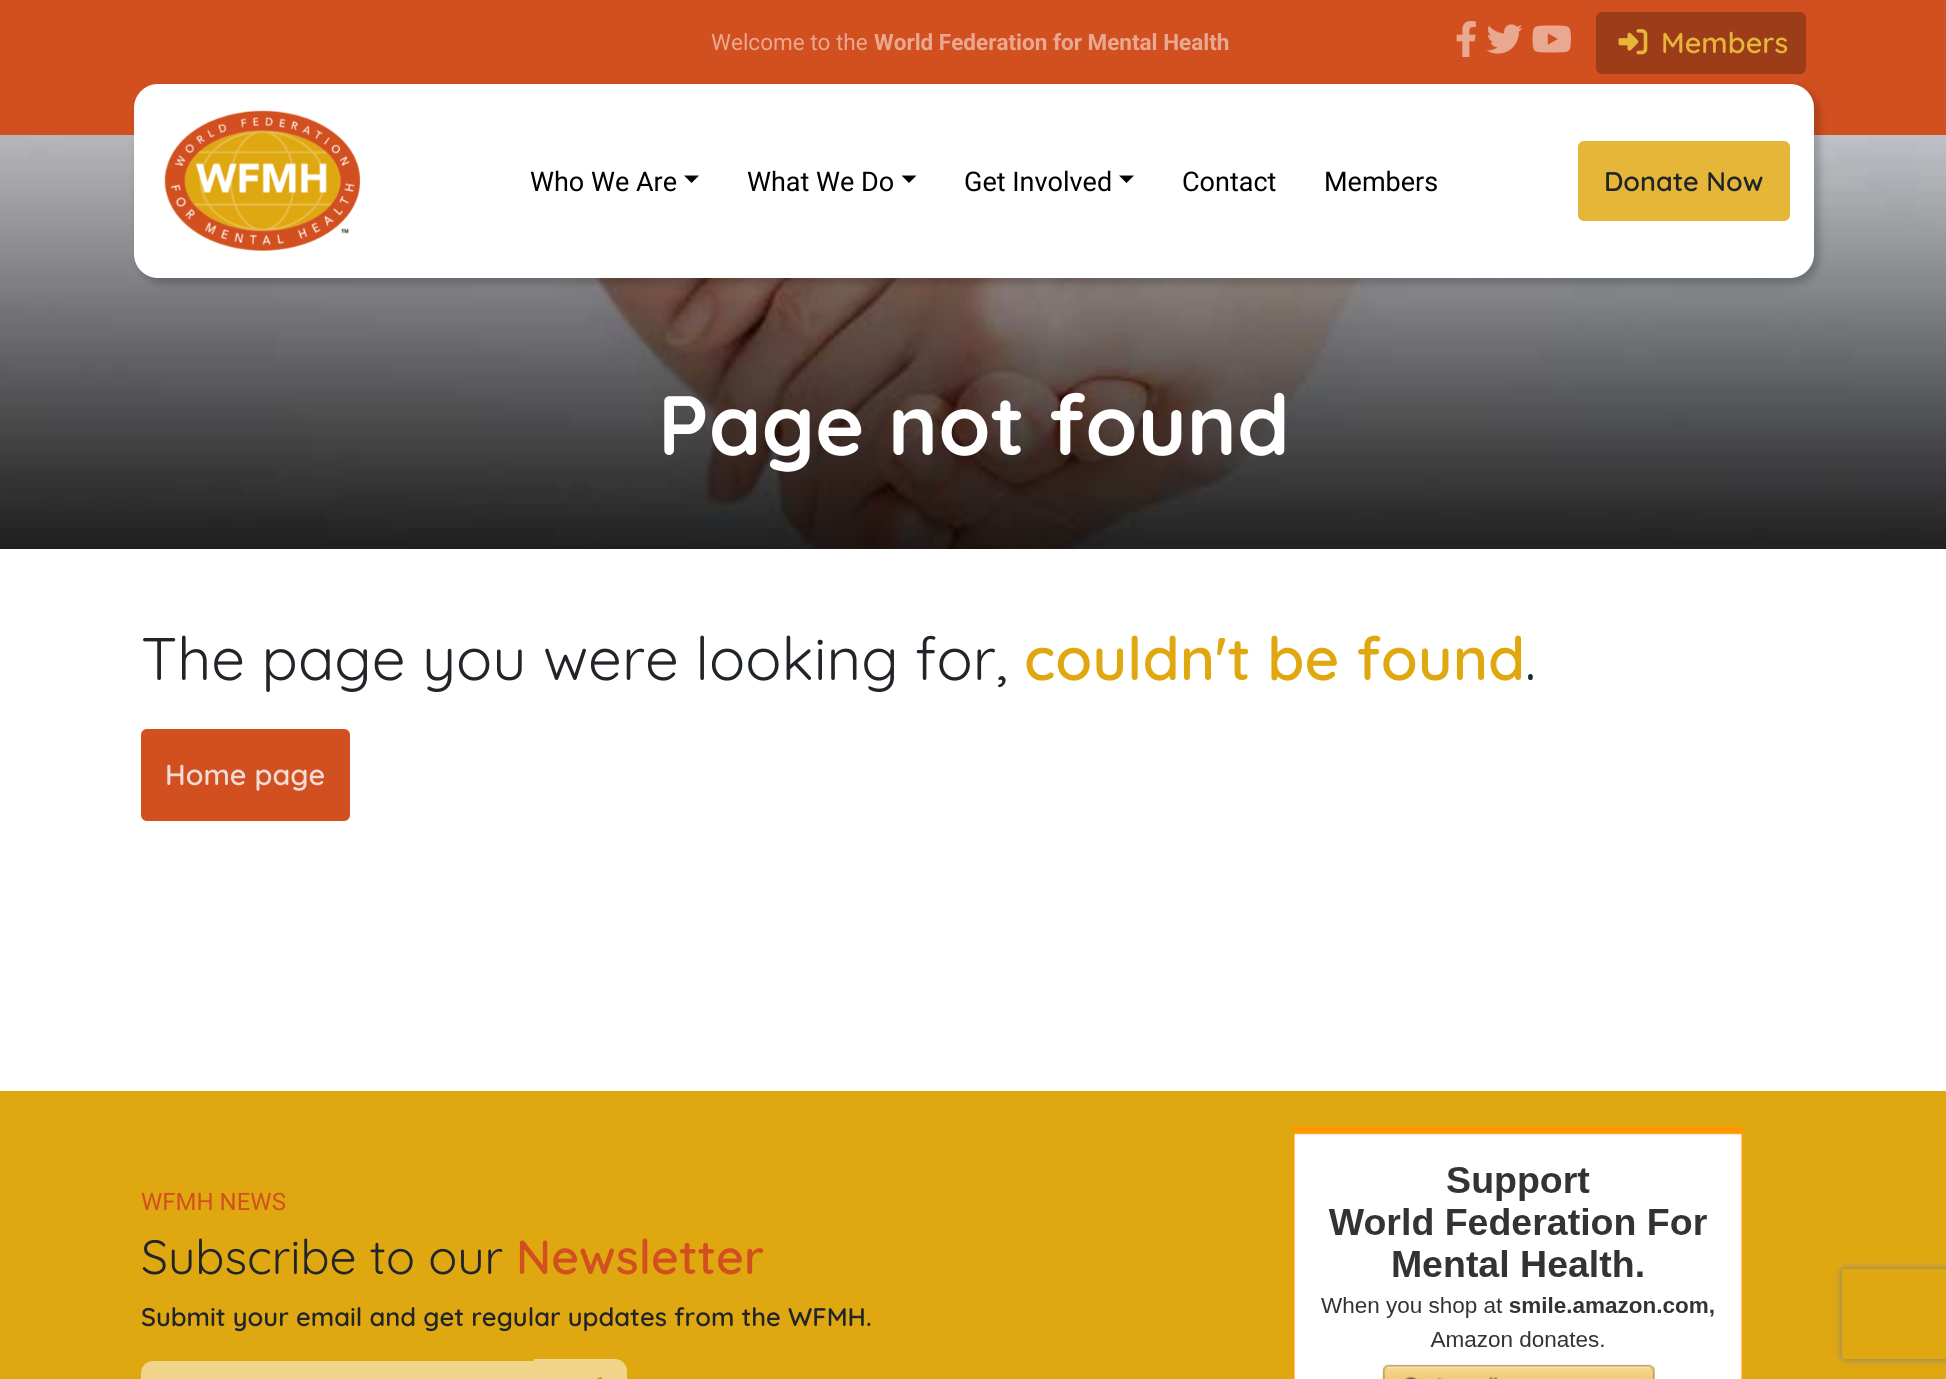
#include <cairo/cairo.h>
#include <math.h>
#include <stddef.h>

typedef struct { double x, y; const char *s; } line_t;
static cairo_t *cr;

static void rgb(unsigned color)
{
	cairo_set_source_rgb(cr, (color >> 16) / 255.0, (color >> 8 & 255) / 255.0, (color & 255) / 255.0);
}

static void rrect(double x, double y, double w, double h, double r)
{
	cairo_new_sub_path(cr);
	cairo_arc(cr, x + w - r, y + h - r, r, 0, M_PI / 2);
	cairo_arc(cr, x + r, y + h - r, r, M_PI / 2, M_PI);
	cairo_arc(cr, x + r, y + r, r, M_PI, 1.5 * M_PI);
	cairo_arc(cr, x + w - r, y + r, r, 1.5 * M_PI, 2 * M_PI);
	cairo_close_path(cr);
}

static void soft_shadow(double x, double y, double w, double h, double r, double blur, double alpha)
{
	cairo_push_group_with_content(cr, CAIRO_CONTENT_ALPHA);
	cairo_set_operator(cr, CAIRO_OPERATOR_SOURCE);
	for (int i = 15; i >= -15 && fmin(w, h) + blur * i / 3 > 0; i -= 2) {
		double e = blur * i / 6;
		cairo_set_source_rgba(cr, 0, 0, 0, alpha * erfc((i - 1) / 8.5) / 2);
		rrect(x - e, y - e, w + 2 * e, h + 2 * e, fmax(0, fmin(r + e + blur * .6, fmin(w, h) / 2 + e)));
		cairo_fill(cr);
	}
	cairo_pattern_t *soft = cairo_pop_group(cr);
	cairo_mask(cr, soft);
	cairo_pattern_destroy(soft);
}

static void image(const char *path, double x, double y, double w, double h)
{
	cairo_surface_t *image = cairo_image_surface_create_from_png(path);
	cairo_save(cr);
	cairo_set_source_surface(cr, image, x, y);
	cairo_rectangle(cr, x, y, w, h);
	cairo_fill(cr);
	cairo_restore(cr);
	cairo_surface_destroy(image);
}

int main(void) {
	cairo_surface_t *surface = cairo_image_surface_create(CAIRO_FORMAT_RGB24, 1946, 1379);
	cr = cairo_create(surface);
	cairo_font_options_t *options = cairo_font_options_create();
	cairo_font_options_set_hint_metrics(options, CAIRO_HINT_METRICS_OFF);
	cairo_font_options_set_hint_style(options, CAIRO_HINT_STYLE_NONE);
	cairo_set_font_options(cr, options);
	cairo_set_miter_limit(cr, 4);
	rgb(0xffffff);
	cairo_paint(cr);
	rgb(0xd25020);
	cairo_rectangle(cr, 0, 0, 1946, 135);
	cairo_fill(cr);
	image("img/1.png", 1456, 21, 20, 36);
	image("img/2.png", 1486, 24, 37, 30);
	image("img/3.png", 1532, 25, 39, 28);
	rgb(0x9d3c18);
	rrect(1596, 12, 210, 62, 6);
	cairo_fill(cr);
	image("img/4.png", 1618, 29, 30, 26);
	image("img/6.png", 0, 135, 1946, 414);
	rgb(0x000000);
	soft_shadow(137, 87, 1683, 197, 26, 4, 0.2);
	rgb(0xffffff);
	rrect(134, 84, 1680, 194, 24);
	cairo_fill(cr);
	image("img/5.png", 164, 110, 197, 141);
	rgb(0x000000);
	cairo_new_path(cr);
	cairo_move_to(cr, 684, 175.5);
	cairo_line_to(cr, 699, 175.5);
	cairo_line_to(cr, 691.5, 183);
	cairo_close_path(cr);
	cairo_fill(cr);
	cairo_new_path(cr);
	cairo_move_to(cr, 901.5, 175.5);
	cairo_line_to(cr, 916.5, 175.5);
	cairo_line_to(cr, 909, 183);
	cairo_close_path(cr);
	cairo_fill(cr);
	cairo_new_path(cr);
	cairo_move_to(cr, 1119, 175.5);
	cairo_line_to(cr, 1134, 175.5);
	cairo_line_to(cr, 1126.5, 183);
	cairo_close_path(cr);
	cairo_fill(cr);
	rgb(0xe5b637);
	rrect(1578, 141, 212, 80, 6);
	cairo_fill(cr);
	rgb(0xd25020);
	rrect(141, 729, 209, 92, 6);
	cairo_fill(cr);
	rgb(0xe0a810);
	cairo_rectangle(cr, 0, 1091, 1946, 288);
	cairo_fill(cr);
	rgb(0xf0d488);
	cairo_new_path(cr);
	cairo_move_to(cr, 153, 1361);
	cairo_line_to(cr, 534, 1361);
	cairo_line_to(cr, 534, 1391);
	cairo_line_to(cr, 153, 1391);
	cairo_curve_to(cr, 146.5, 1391, 141, 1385.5, 141, 1379);
	cairo_line_to(cr, 141, 1373);
	cairo_curve_to(cr, 141, 1366.5, 146.5, 1361, 153, 1361);
	cairo_close_path(cr);
	cairo_fill(cr);
	cairo_new_path(cr);
	cairo_move_to(cr, 534, 1359);
	cairo_line_to(cr, 615, 1359);
	cairo_curve_to(cr, 621.5, 1359, 627, 1364.5, 627, 1371);
	cairo_line_to(cr, 627, 1379);
	cairo_curve_to(cr, 627, 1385.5, 621.5, 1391, 615, 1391);
	cairo_line_to(cr, 534, 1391);
	cairo_close_path(cr);
	cairo_fill(cr);
	image("img/7.png", 596, 1377, 7, 2);
	image("img/8.png", 1293, 1126, 450, 253);
	cairo_save(cr);
	cairo_set_fill_rule(cr, CAIRO_FILL_RULE_EVEN_ODD);
	cairo_new_path(cr);
	cairo_move_to(cr, 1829, 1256);
	cairo_line_to(cr, 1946, 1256);
	cairo_line_to(cr, 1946, 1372);
	cairo_line_to(cr, 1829, 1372);
	cairo_close_path(cr);
	cairo_move_to(cr, 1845, 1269);
	cairo_line_to(cr, 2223, 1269);
	cairo_curve_to(cr, 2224.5, 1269, 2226, 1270.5, 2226, 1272);
	cairo_line_to(cr, 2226, 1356);
	cairo_curve_to(cr, 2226, 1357.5, 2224.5, 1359, 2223, 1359);
	cairo_line_to(cr, 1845, 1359);
	cairo_curve_to(cr, 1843.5, 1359, 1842, 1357.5, 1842, 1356);
	cairo_line_to(cr, 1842, 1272);
	cairo_curve_to(cr, 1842, 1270.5, 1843.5, 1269, 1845, 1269);
	cairo_close_path(cr);
	cairo_clip(cr);
	rgb(0x808080);
	soft_shadow(1842, 1269, 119, 90, 3, 4, 1);
	cairo_restore(cr);
	cairo_select_font_face(cr, "Roboto", CAIRO_FONT_SLANT_NORMAL, CAIRO_FONT_WEIGHT_NORMAL);
	cairo_set_font_size(cr, 22.5);
	rgb(0xe9a890);
	cairo_move_to(cr, 711, 50);
	cairo_show_text(cr, "Welcome to the");
	cairo_select_font_face(cr, "Roboto", CAIRO_FONT_SLANT_NORMAL, CAIRO_FONT_WEIGHT_BOLD);
	cairo_move_to(cr, 874, 50);
	cairo_show_text(cr, "World Federation for Mental Health");
	cairo_select_font_face(cr, "Quicksand SemiBold", CAIRO_FONT_SLANT_NORMAL, CAIRO_FONT_WEIGHT_NORMAL);
	cairo_set_font_size(cr, 28.75);
	rgb(0xe5b637);
	cairo_move_to(cr, 1661, 53);
	cairo_show_text(cr, "Members");
	cairo_select_font_face(cr, "Roboto", CAIRO_FONT_SLANT_NORMAL, CAIRO_FONT_WEIGHT_NORMAL);
	cairo_set_font_size(cr, 27);
	rgb(0x000000);
	{
		static const line_t items[] = {
			{530, 191, "Who We Are"},
			{747, 191, "What We Do"},
			{964, 191, "Get Involved"},
			{1182, 191, "Contact"},
			{1324, 191, "Members"},
		};
		for (size_t i = 0; i < sizeof items / sizeof *items; i++) {
			cairo_move_to(cr, items[i].x, items[i].y);
			cairo_show_text(cr, items[i].s);
		}
	}
	cairo_select_font_face(cr, "Quicksand SemiBold", CAIRO_FONT_SLANT_NORMAL, CAIRO_FONT_WEIGHT_NORMAL);
	rgb(0x212529);
	cairo_move_to(cr, 1604, 191);
	cairo_show_text(cr, "Donate Now");
	cairo_select_font_face(cr, "Quicksand", CAIRO_FONT_SLANT_NORMAL, CAIRO_FONT_WEIGHT_BOLD);
	cairo_set_font_size(cr, 84);
	rgb(0xffffff);
	cairo_move_to(cr, 658, 455);
	cairo_show_text(cr, "Page not found");
	cairo_select_font_face(cr, "Quicksand", CAIRO_FONT_SLANT_NORMAL, CAIRO_FONT_WEIGHT_NORMAL);
	cairo_set_font_size(cr, 60);
	rgb(0x212529);
	cairo_move_to(cr, 141, 680);
	cairo_show_text(cr, "The page you were looking for,");
	cairo_select_font_face(cr, "Quicksand SemiBold", CAIRO_FONT_SLANT_NORMAL, CAIRO_FONT_WEIGHT_NORMAL);
	rgb(0xe0a810);
	cairo_move_to(cr, 1024, 680);
	cairo_show_text(cr, "couldn't be found");
	cairo_select_font_face(cr, "Quicksand", CAIRO_FONT_SLANT_NORMAL, CAIRO_FONT_WEIGHT_NORMAL);
	rgb(0x212529);
	cairo_move_to(cr, 1525, 680);
	cairo_show_text(cr, ".");
	cairo_select_font_face(cr, "Quicksand SemiBold", CAIRO_FONT_SLANT_NORMAL, CAIRO_FONT_WEIGHT_NORMAL);
	cairo_set_font_size(cr, 28.75);
	rgb(0xf4dcd6);
	cairo_move_to(cr, 165, 785);
	cairo_show_text(cr, "Home page");
	cairo_select_font_face(cr, "Roboto", CAIRO_FONT_SLANT_NORMAL, CAIRO_FONT_WEIGHT_NORMAL);
	cairo_set_font_size(cr, 24);
	rgb(0xd25020);
	cairo_move_to(cr, 141, 1210);
	cairo_show_text(cr, "WFMH NEWS");
	cairo_select_font_face(cr, "Quicksand", CAIRO_FONT_SLANT_NORMAL, CAIRO_FONT_WEIGHT_NORMAL);
	cairo_set_font_size(cr, 48);
	rgb(0x212529);
	cairo_move_to(cr, 141, 1274);
	cairo_show_text(cr, "Subscribe to our");
	cairo_select_font_face(cr, "Quicksand SemiBold", CAIRO_FONT_SLANT_NORMAL, CAIRO_FONT_WEIGHT_NORMAL);
	rgb(0xd25020);
	cairo_move_to(cr, 516, 1274);
	cairo_show_text(cr, "Newsletter");
	cairo_set_font_size(cr, 25.5);
	rgb(0x212529);
	cairo_move_to(cr, 141, 1326);
	cairo_show_text(cr, "Submit your email and get regular updates from the WFMH.");
	cairo_surface_write_to_png(surface, "page.png");
	cairo_font_options_destroy(options);
	cairo_destroy(cr);
	cairo_surface_destroy(surface);
	return 0;
}
